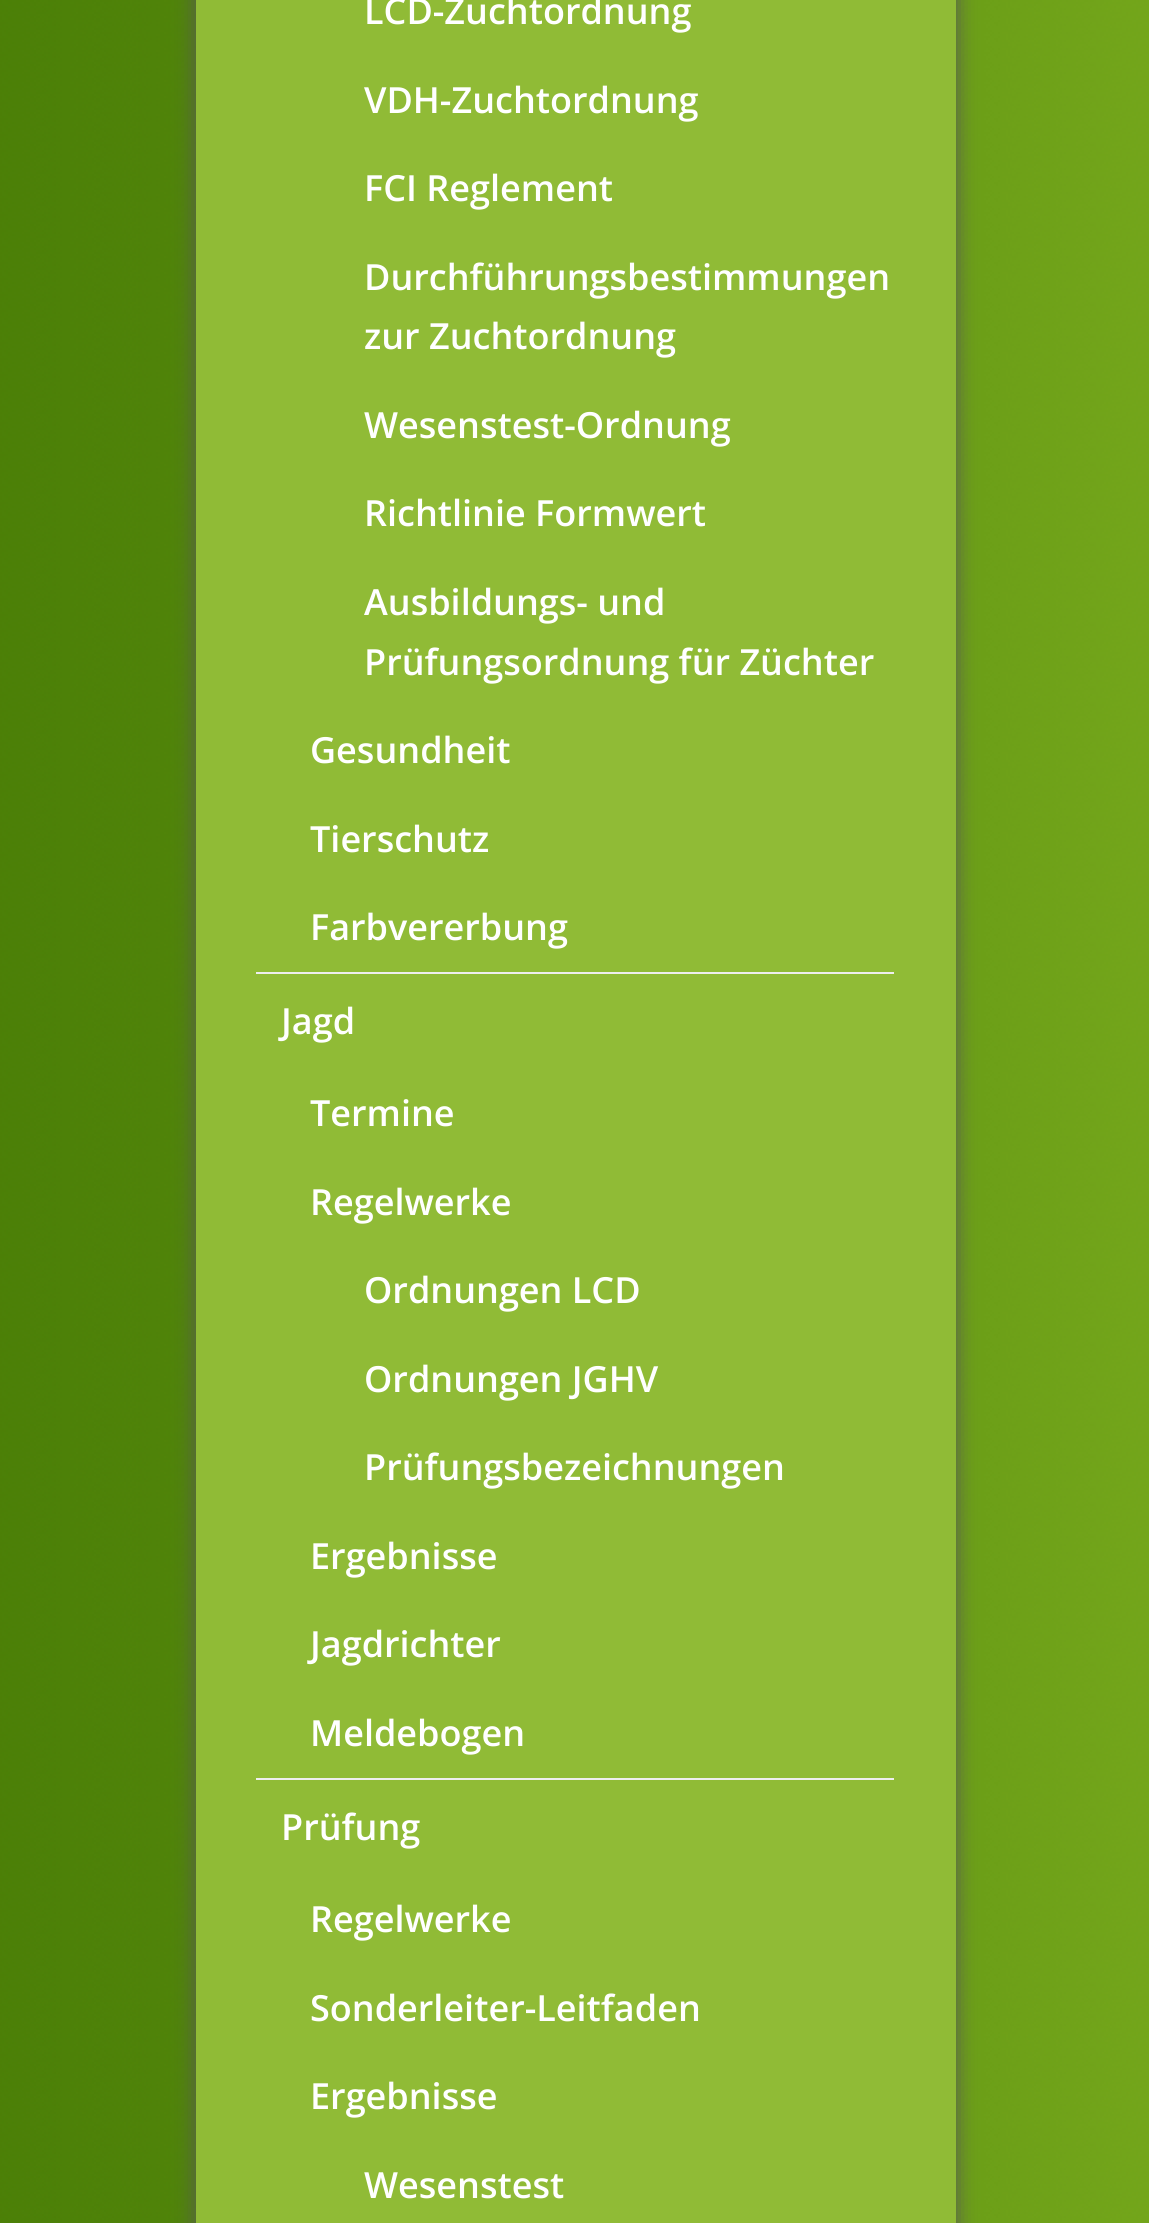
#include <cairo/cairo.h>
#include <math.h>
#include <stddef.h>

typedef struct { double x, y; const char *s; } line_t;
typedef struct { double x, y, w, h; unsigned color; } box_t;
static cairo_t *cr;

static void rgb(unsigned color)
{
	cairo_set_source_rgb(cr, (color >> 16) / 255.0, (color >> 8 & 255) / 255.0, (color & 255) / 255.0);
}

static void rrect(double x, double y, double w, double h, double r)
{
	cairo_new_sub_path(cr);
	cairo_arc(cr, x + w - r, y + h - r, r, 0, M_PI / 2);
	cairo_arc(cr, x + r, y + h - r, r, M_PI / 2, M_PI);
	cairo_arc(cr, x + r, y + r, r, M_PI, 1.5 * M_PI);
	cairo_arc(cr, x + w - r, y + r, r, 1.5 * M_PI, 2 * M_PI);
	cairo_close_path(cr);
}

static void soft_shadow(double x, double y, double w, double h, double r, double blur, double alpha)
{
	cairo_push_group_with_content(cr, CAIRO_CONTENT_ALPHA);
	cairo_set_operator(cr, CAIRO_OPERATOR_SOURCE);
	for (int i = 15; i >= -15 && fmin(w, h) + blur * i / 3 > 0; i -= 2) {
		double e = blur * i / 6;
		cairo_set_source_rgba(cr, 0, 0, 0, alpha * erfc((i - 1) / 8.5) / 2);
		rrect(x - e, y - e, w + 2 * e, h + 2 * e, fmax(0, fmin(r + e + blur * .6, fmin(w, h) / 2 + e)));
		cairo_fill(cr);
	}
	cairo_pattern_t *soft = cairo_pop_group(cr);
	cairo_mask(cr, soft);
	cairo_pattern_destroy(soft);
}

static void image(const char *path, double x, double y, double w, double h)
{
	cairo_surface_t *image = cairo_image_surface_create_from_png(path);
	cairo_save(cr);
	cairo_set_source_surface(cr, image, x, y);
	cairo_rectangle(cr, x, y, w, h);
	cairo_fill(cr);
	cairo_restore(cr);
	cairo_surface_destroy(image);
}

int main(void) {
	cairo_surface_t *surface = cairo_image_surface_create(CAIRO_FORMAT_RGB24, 1149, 2223);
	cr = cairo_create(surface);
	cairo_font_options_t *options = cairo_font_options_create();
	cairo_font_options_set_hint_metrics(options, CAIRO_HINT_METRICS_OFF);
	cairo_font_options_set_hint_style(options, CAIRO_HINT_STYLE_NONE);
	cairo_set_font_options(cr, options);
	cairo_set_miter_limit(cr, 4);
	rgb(0xffffff);
	cairo_paint(cr);
	image("img/1.png", 0, 0, 1149, 2223);
	rgb(0x575757);
	soft_shadow(196, -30, 760, 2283, 0, 10, 1);
	{
		static const box_t items[] = {
			{196, 0, 760, 2223, 0x90bb36},
			{256, 972, 638, 2, 0xeeeeee},
			{256, 1778, 638, 2, 0xeeeeee},
		};
		for (size_t i = 0; i < sizeof items / sizeof *items; i++) {
			rgb(items[i].color);
			cairo_rectangle(cr, items[i].x, items[i].y, items[i].w, items[i].h);
			cairo_fill(cr);
		}
	}
	cairo_select_font_face(cr, "Open Sans SemiBold", CAIRO_FONT_SLANT_NORMAL, CAIRO_FONT_WEIGHT_NORMAL);
	cairo_set_font_size(cr, 36);
	rgb(0xffffff);
	{
		static const line_t items[] = {
			{364, 24, "LCD-Zuchtordnung"},
			{364, 113, "VDH-Zuchtordnung"},
			{364, 201, "FCI Reglement"},
			{364, 290, "Durchführungsbestimmungen"},
			{364, 349, "zur Zuchtordnung"},
			{364, 438, "Wesenstest-Ordnung"},
			{364, 526, "Richtlinie Formwert"},
			{364, 615, "Ausbildungs- und"},
			{364, 675, "Prüfungsordnung für Züchter"},
			{310, 763, "Gesundheit"},
			{310, 852, "Tierschutz"},
			{310, 940, "Farbvererbung"},
			{281, 1034, "Jagd"},
			{310, 1126, "Termine"},
			{310, 1215, "Regelwerke"},
			{364, 1303, "Ordnungen LCD"},
			{364, 1392, "Ordnungen JGHV"},
			{364, 1480, "Prüfungsbezeichnungen"},
			{310, 1569, "Ergebnisse"},
			{310, 1657, "Jagdrichter"},
			{310, 1746, "Meldebogen"},
			{281, 1840, "Prüfung"},
			{310, 1932, "Regelwerke"},
			{310, 2021, "Sonderleiter-Leitfaden"},
			{310, 2109, "Ergebnisse"},
			{364, 2198, "Wesenstest"},
		};
		for (size_t i = 0; i < sizeof items / sizeof *items; i++) {
			cairo_move_to(cr, items[i].x, items[i].y);
			cairo_show_text(cr, items[i].s);
		}
	}
	cairo_surface_write_to_png(surface, "page.png");
	cairo_font_options_destroy(options);
	cairo_destroy(cr);
	cairo_surface_destroy(surface);
	return 0;
}
